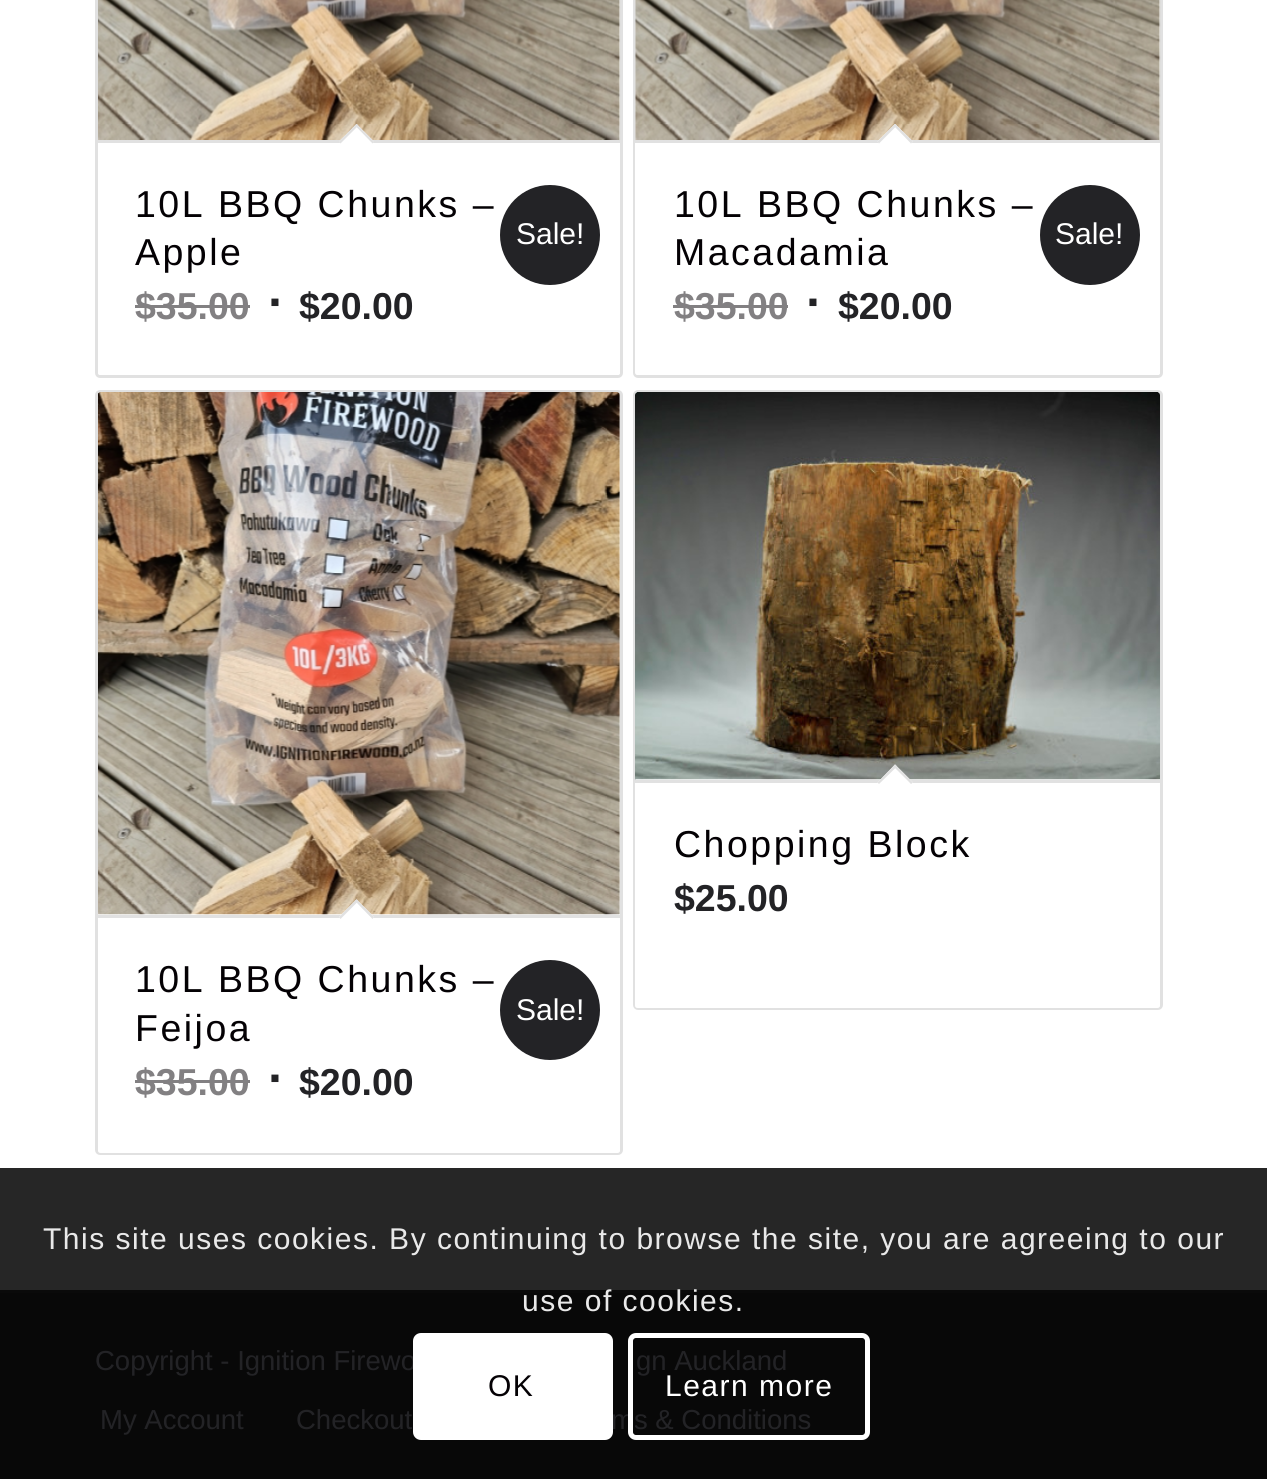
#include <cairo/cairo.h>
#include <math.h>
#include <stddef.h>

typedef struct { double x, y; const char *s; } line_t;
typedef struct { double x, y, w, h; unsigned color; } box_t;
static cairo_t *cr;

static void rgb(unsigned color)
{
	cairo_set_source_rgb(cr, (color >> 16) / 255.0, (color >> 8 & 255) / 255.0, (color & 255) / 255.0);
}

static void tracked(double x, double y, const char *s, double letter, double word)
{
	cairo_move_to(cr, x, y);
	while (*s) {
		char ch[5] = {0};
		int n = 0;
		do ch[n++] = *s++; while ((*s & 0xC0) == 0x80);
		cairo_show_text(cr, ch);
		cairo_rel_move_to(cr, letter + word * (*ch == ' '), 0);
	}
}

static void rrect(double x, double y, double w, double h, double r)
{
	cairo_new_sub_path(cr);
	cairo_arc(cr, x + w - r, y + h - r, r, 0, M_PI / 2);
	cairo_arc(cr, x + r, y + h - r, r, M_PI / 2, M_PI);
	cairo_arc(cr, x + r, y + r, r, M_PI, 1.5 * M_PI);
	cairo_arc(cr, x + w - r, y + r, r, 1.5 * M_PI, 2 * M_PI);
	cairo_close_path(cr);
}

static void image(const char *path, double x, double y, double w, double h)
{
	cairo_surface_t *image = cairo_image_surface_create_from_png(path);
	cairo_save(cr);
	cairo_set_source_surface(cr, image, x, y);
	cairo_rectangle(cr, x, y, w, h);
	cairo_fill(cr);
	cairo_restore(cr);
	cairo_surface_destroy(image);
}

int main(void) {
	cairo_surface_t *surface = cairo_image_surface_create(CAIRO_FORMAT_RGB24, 1267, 1479);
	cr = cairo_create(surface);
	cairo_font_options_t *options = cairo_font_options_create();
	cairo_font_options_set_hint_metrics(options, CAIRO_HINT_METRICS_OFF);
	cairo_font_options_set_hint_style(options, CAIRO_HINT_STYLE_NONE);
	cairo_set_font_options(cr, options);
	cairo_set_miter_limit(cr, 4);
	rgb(0xffffff);
	cairo_paint(cr);
	rgb(0x262626);
	cairo_rectangle(cr, 0, 1168, 1267, 122);
	cairo_fill(cr);
	rrect(96.5, -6.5, 525, 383, 3.5);
	rgb(0xe1e1e1);
	cairo_set_line_width(cr, 3);
	cairo_stroke(cr);
	image("img/1.png", 98, 0, 523, 140);
	rgb(0xffffff);
	cairo_new_path(cr);
	cairo_move_to(cr, 98, 140);
	cairo_line_to(cr, 620, 140);
	cairo_line_to(cr, 620, 372.5);
	cairo_curve_to(cr, 620, 374, 619, 375, 617.5, 375);
	cairo_line_to(cr, 100.5, 375);
	cairo_curve_to(cr, 99, 375, 98, 374, 98, 372.5);
	cairo_close_path(cr);
	cairo_fill(cr);
	rgb(0xe1e1e1);
	cairo_rectangle(cr, 98, 140, 522, 3);
	cairo_fill(cr);
	rgb(0xffffff);
	cairo_new_path(cr);
	cairo_move_to(cr, 356.5, 124);
	cairo_line_to(cr, 374, 141.5);
	cairo_line_to(cr, 356.5, 159);
	cairo_line_to(cr, 339, 141.5);
	cairo_close_path(cr);
	cairo_fill(cr);
	rgb(0xe1e1e1);
	cairo_new_path(cr);
	cairo_move_to(cr, 356.5, 124);
	cairo_line_to(cr, 374, 141.5);
	cairo_line_to(cr, 372.5, 143.5);
	cairo_line_to(cr, 355, 125.5);
	cairo_close_path(cr);
	cairo_fill(cr);
	cairo_new_path(cr);
	cairo_move_to(cr, 356.5, 124);
	cairo_line_to(cr, 358.5, 125.5);
	cairo_line_to(cr, 340.5, 143.5);
	cairo_line_to(cr, 339, 141.5);
	cairo_close_path(cr);
	cairo_fill(cr);
	rgb(0x232326);
	cairo_arc(cr, 550, 235, 50, 0, 2 * M_PI);
	cairo_fill(cr);
	rgb(0x828082);
	cairo_rectangle(cr, 135, 305, 115, 3);
	cairo_fill(cr);
	rrect(634.5, -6.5, 527, 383, 3.5);
	rgb(0xe1e1e1);
	cairo_stroke(cr);
	image("img/2.png", 634, 0, 527, 140);
	rgb(0xffffff);
	cairo_new_path(cr);
	cairo_move_to(cr, 635, 140);
	cairo_line_to(cr, 1160, 140);
	cairo_line_to(cr, 1160, 372.5);
	cairo_curve_to(cr, 1160, 374, 1159, 375, 1157.5, 375);
	cairo_line_to(cr, 637.5, 375);
	cairo_curve_to(cr, 636, 375, 635, 374, 635, 372.5);
	cairo_close_path(cr);
	cairo_fill(cr);
	rgb(0xe1e1e1);
	cairo_rectangle(cr, 635, 140, 525, 3);
	cairo_fill(cr);
	rgb(0xffffff);
	cairo_new_path(cr);
	cairo_move_to(cr, 895, 124);
	cairo_line_to(cr, 913, 141.5);
	cairo_line_to(cr, 895, 159);
	cairo_line_to(cr, 877.5, 141.5);
	cairo_close_path(cr);
	cairo_fill(cr);
	rgb(0xe1e1e1);
	cairo_new_path(cr);
	cairo_move_to(cr, 895, 124);
	cairo_line_to(cr, 913, 141.5);
	cairo_line_to(cr, 911, 143.5);
	cairo_line_to(cr, 893.5, 125.5);
	cairo_close_path(cr);
	cairo_fill(cr);
	cairo_new_path(cr);
	cairo_move_to(cr, 895, 124);
	cairo_line_to(cr, 897, 125.5);
	cairo_line_to(cr, 879, 143.5);
	cairo_line_to(cr, 877.5, 141.5);
	cairo_close_path(cr);
	cairo_fill(cr);
	rgb(0x232326);
	cairo_arc(cr, 1090, 235, 50, 0, 2 * M_PI);
	cairo_fill(cr);
	rgb(0x828082);
	cairo_rectangle(cr, 673, 305, 115, 3);
	cairo_fill(cr);
	rrect(634.5, 391.5, 527, 617, 3.5);
	rgb(0xe1e1e1);
	cairo_stroke(cr);
	image("img/3.png", 635, 392, 525, 388);
	rgb(0xffffff);
	cairo_new_path(cr);
	cairo_move_to(cr, 635, 780);
	cairo_line_to(cr, 1160, 780);
	cairo_line_to(cr, 1160, 1005.5);
	cairo_curve_to(cr, 1160, 1007, 1159, 1008, 1157.5, 1008);
	cairo_line_to(cr, 637.5, 1008);
	cairo_curve_to(cr, 636, 1008, 635, 1007, 635, 1005.5);
	cairo_close_path(cr);
	cairo_fill(cr);
	rgb(0xe1e1e1);
	cairo_rectangle(cr, 635, 780, 525, 3);
	cairo_fill(cr);
	rgb(0xffffff);
	cairo_new_path(cr);
	cairo_move_to(cr, 895, 764.5);
	cairo_line_to(cr, 913, 782.5);
	cairo_line_to(cr, 895, 800);
	cairo_line_to(cr, 877.5, 782.5);
	cairo_close_path(cr);
	cairo_fill(cr);
	rgb(0xe1e1e1);
	cairo_new_path(cr);
	cairo_move_to(cr, 895, 764.5);
	cairo_line_to(cr, 913, 782.5);
	cairo_line_to(cr, 911, 784);
	cairo_line_to(cr, 893.5, 766.5);
	cairo_close_path(cr);
	cairo_fill(cr);
	cairo_new_path(cr);
	cairo_move_to(cr, 895, 764.5);
	cairo_line_to(cr, 897, 766.5);
	cairo_line_to(cr, 879, 784);
	cairo_line_to(cr, 877.5, 782.5);
	cairo_close_path(cr);
	cairo_fill(cr);
	rrect(96.5, 391.5, 525, 762, 3.5);
	cairo_stroke(cr);
	image("img/4.png", 98, 392, 522, 523);
	rgb(0xffffff);
	cairo_new_path(cr);
	cairo_move_to(cr, 98, 915);
	cairo_line_to(cr, 620, 915);
	cairo_line_to(cr, 620, 1150.5);
	cairo_curve_to(cr, 620, 1152, 619, 1153, 617.5, 1153);
	cairo_line_to(cr, 100.5, 1153);
	cairo_curve_to(cr, 99, 1153, 98, 1152, 98, 1150.5);
	cairo_close_path(cr);
	cairo_fill(cr);
	rgb(0xe1e1e1);
	cairo_rectangle(cr, 98, 915, 522, 3);
	cairo_fill(cr);
	rgb(0xffffff);
	cairo_new_path(cr);
	cairo_move_to(cr, 356.5, 899.5);
	cairo_line_to(cr, 374, 917);
	cairo_line_to(cr, 356.5, 934.5);
	cairo_line_to(cr, 339, 917);
	cairo_close_path(cr);
	cairo_fill(cr);
	rgb(0xe1e1e1);
	cairo_new_path(cr);
	cairo_move_to(cr, 356.5, 899.5);
	cairo_line_to(cr, 374, 917);
	cairo_line_to(cr, 372.5, 919);
	cairo_line_to(cr, 355, 901);
	cairo_close_path(cr);
	cairo_fill(cr);
	cairo_new_path(cr);
	cairo_move_to(cr, 356.5, 899.5);
	cairo_line_to(cr, 358.5, 901);
	cairo_line_to(cr, 340.5, 919);
	cairo_line_to(cr, 339, 917);
	cairo_close_path(cr);
	cairo_fill(cr);
	rgb(0x232326);
	cairo_arc(cr, 550, 1010, 50, 0, 2 * M_PI);
	cairo_fill(cr);
	{
		static const box_t items[] = {
			{135, 1080, 115, 3, 0x828082},
			{0, 1293, 1267, 186, 0x080808},
			{0, 1290, 1267, 3, 0x0a0a0a},
		};
		for (size_t i = 0; i < sizeof items / sizeof *items; i++) {
			rgb(items[i].color);
			cairo_rectangle(cr, items[i].x, items[i].y, items[i].w, items[i].h);
			cairo_fill(cr);
		}
	}
	cairo_select_font_face(cr, "Liberation Sans", CAIRO_FONT_SLANT_NORMAL, CAIRO_FONT_WEIGHT_NORMAL);
	cairo_set_font_size(cr, 37.5);
	rgb(0x040104);
	tracked(135, 217, "10L BBQ Chunks –", 2.5, 0);
	tracked(135, 265, "Apple", 2.5, 0);
	cairo_set_font_size(cr, 30);
	rgb(0xffffff);
	cairo_move_to(cr, 516, 244);
	cairo_show_text(cr, "Sale!");
	cairo_select_font_face(cr, "Liberation Sans", CAIRO_FONT_SLANT_NORMAL, CAIRO_FONT_WEIGHT_BOLD);
	cairo_set_font_size(cr, 37.5);
	rgb(0x828082);
	cairo_move_to(cr, 135, 319);
	cairo_show_text(cr, "$35.00");
	cairo_set_font_size(cr, 50);
	rgb(0x232326);
	cairo_move_to(cr, 268, 319);
	cairo_show_text(cr, "∙");
	cairo_set_font_size(cr, 37.5);
	cairo_move_to(cr, 299, 319);
	cairo_show_text(cr, "$20.00");
	cairo_select_font_face(cr, "Liberation Sans", CAIRO_FONT_SLANT_NORMAL, CAIRO_FONT_WEIGHT_NORMAL);
	rgb(0x040104);
	tracked(674, 217, "10L BBQ Chunks –", 2.5, 0);
	tracked(674, 265, "Macadamia", 2.5, 0);
	cairo_set_font_size(cr, 30);
	rgb(0xffffff);
	cairo_move_to(cr, 1055, 244);
	cairo_show_text(cr, "Sale!");
	cairo_select_font_face(cr, "Liberation Sans", CAIRO_FONT_SLANT_NORMAL, CAIRO_FONT_WEIGHT_BOLD);
	cairo_set_font_size(cr, 37.5);
	rgb(0x828082);
	cairo_move_to(cr, 674, 319);
	cairo_show_text(cr, "$35.00");
	cairo_set_font_size(cr, 50);
	rgb(0x232326);
	cairo_move_to(cr, 806, 319);
	cairo_show_text(cr, "∙");
	cairo_set_font_size(cr, 37.5);
	cairo_move_to(cr, 838, 319);
	cairo_show_text(cr, "$20.00");
	cairo_select_font_face(cr, "Liberation Sans", CAIRO_FONT_SLANT_NORMAL, CAIRO_FONT_WEIGHT_NORMAL);
	rgb(0x040104);
	tracked(674, 857, "Chopping Block", 2.5, 0);
	cairo_select_font_face(cr, "Liberation Sans", CAIRO_FONT_SLANT_NORMAL, CAIRO_FONT_WEIGHT_BOLD);
	rgb(0x232326);
	cairo_move_to(cr, 674, 911);
	cairo_show_text(cr, "$25.00");
	cairo_select_font_face(cr, "Liberation Sans", CAIRO_FONT_SLANT_NORMAL, CAIRO_FONT_WEIGHT_NORMAL);
	rgb(0x040104);
	tracked(135, 992, "10L BBQ Chunks –", 2.5, 0);
	tracked(135, 1041, "Feijoa", 2.5, 0);
	cairo_set_font_size(cr, 30);
	rgb(0xffffff);
	cairo_move_to(cr, 516, 1020);
	cairo_show_text(cr, "Sale!");
	cairo_select_font_face(cr, "Liberation Sans", CAIRO_FONT_SLANT_NORMAL, CAIRO_FONT_WEIGHT_BOLD);
	cairo_set_font_size(cr, 37.5);
	rgb(0x828082);
	cairo_move_to(cr, 135, 1095);
	cairo_show_text(cr, "$35.00");
	cairo_set_font_size(cr, 50);
	rgb(0x232326);
	cairo_move_to(cr, 268, 1095);
	cairo_show_text(cr, "∙");
	cairo_set_font_size(cr, 37.5);
	cairo_move_to(cr, 299, 1095);
	cairo_show_text(cr, "$20.00");
	cairo_select_font_face(cr, "Liberation Sans", CAIRO_FONT_SLANT_NORMAL, CAIRO_FONT_WEIGHT_NORMAL);
	cairo_set_font_size(cr, 27.5);
	{
		static const line_t items[] = {
			{95, 1370, "Copyright - Ignition Firewo"},
			{636, 1370, "gn Auckland"},
			{100, 1429, "My Account"},
			{296, 1429, "Checkout"},
			{611, 1429, "ms & Conditions"},
		};
		for (size_t i = 0; i < sizeof items / sizeof *items; i++) {
			cairo_move_to(cr, items[i].x, items[i].y);
			cairo_show_text(cr, items[i].s);
		}
	}
	cairo_set_font_size(cr, 30);
	rgb(0xe9e9e9);
	tracked(43, 1249, "This site uses cookies. By continuing to browse the site, you are agreeing to our", 1.5, 0);
	tracked(522, 1311, "use of cookies.", 1.5, 0);
	rgb(0xffffff);
	rrect(413, 1333, 200, 107, 8);
	cairo_fill(cr);
	rgb(0x040104);
	tracked(488, 1396, "OK", 1.5, 0);
	rrect(630.5, 1335.5, 237, 102, 5.5);
	rgb(0xffffff);
	cairo_set_line_width(cr, 5);
	cairo_stroke(cr);
	tracked(665, 1396, "Learn more", 1.5, 0);
	cairo_surface_write_to_png(surface, "page.png");
	cairo_font_options_destroy(options);
	cairo_destroy(cr);
	cairo_surface_destroy(surface);
	return 0;
}
